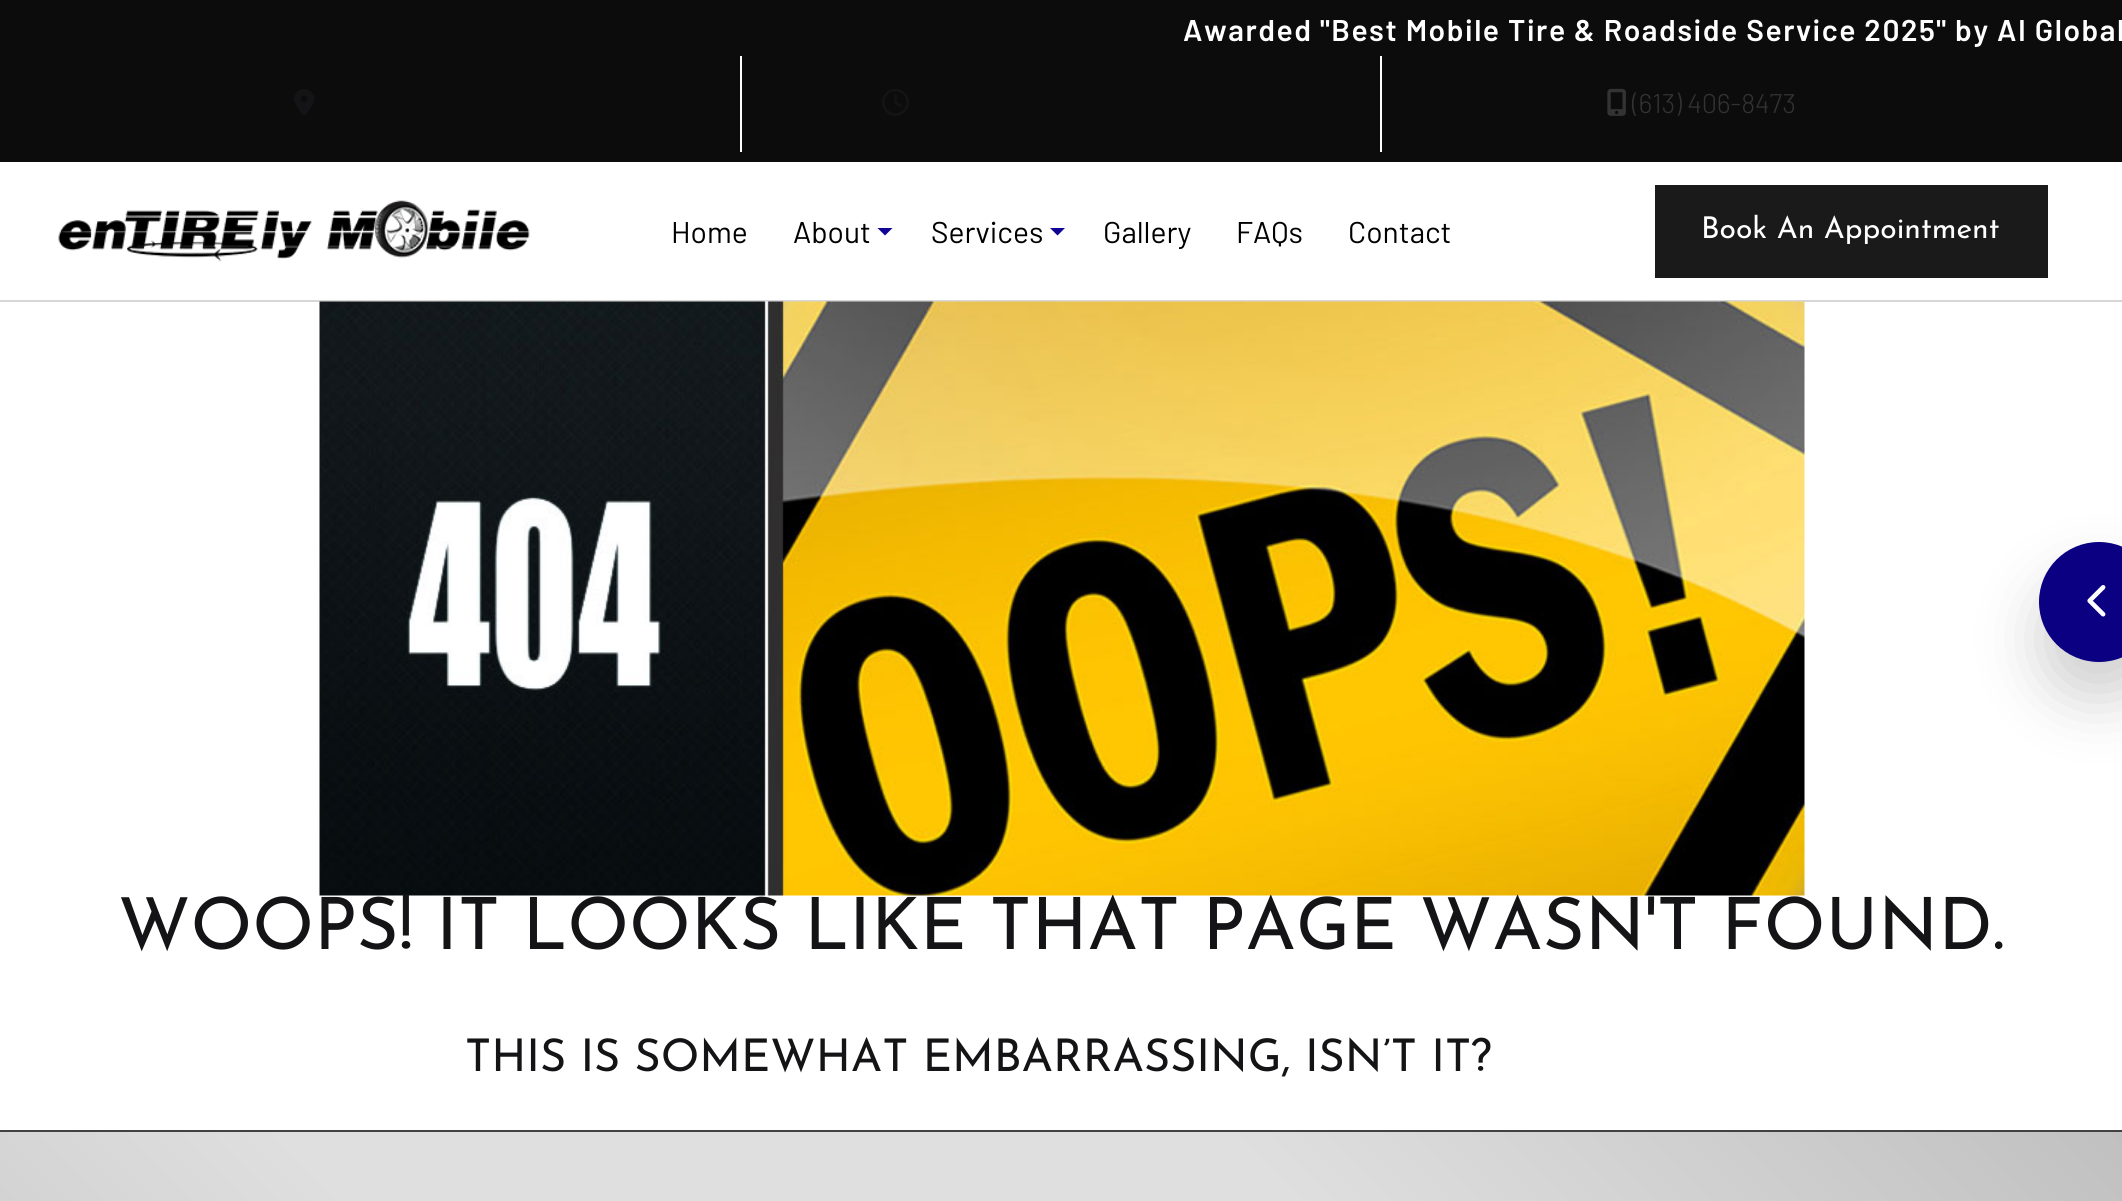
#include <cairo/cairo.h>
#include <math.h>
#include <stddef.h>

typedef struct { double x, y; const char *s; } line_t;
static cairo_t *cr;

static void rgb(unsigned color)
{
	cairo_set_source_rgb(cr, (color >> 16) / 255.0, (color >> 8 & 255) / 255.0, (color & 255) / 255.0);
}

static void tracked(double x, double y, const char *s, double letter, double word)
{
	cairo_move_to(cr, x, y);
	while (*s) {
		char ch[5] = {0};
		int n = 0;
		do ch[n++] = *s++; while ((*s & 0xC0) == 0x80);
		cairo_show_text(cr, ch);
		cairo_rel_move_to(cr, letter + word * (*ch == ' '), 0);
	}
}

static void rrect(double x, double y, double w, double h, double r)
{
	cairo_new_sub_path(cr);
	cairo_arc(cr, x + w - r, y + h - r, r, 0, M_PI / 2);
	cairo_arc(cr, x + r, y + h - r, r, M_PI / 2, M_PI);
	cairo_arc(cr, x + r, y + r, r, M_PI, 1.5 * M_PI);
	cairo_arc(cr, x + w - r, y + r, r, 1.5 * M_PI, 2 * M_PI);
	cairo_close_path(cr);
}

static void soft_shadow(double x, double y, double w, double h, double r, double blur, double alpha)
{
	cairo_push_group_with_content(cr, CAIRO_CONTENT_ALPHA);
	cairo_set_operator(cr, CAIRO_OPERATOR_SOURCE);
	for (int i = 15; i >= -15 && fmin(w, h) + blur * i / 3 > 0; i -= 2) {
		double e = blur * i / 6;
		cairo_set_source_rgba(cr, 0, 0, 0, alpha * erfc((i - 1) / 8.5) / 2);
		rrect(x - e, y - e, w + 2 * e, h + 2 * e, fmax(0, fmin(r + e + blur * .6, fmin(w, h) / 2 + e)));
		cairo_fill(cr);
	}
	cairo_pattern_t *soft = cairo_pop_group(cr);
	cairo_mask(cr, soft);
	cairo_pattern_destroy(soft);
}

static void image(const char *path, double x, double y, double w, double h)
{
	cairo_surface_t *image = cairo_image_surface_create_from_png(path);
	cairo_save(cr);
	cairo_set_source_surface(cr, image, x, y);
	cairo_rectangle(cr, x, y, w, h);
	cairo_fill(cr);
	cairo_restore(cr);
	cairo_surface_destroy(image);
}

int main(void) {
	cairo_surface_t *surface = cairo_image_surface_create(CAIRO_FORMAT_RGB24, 2122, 1201);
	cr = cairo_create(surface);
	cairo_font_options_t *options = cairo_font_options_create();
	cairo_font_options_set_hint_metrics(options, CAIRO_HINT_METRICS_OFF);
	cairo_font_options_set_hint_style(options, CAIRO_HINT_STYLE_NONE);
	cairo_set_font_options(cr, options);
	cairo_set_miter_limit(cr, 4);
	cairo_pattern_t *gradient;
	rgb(0xffffff);
	cairo_paint(cr);
	rgb(0x0c0c0c);
	cairo_rectangle(cr, 0, 0, 2122, 162);
	cairo_fill(cr);
	rgb(0xffffff);
	cairo_rectangle(cr, 740, 56, 2, 96);
	cairo_fill(cr);
	image("img/1.png", 294, 89, 20, 27);
	cairo_rectangle(cr, 1380, 56, 2, 96);
	cairo_fill(cr);
	image("img/2.png", 882, 89, 27, 27);
	image("img/3.png", 1607, 88, 19, 28);
	rgb(0xd7d7d7);
	cairo_rectangle(cr, 0, 300, 2122, 2);
	cairo_fill(cr);
	image("img/4.png", 58, 200, 472, 62);
	rgb(0x100497);
	cairo_new_path(cr);
	cairo_move_to(cr, 877.5, 228);
	cairo_line_to(cr, 892.5, 228);
	cairo_line_to(cr, 885, 235.5);
	cairo_close_path(cr);
	cairo_fill(cr);
	cairo_new_path(cr);
	cairo_move_to(cr, 1050, 228);
	cairo_line_to(cr, 1065, 228);
	cairo_line_to(cr, 1057.5, 235.5);
	cairo_close_path(cr);
	cairo_fill(cr);
	rgb(0x1a1a1a);
	cairo_rectangle(cr, 1655, 185, 393, 93);
	cairo_fill(cr);
	rgb(0x1c1c1c);
	soft_shadow(2039, 579, 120, 120, 60, 30, 0.2);
	rgb(0x0a0081);
	cairo_arc(cr, 2099, 602, 60, 0, 2 * M_PI);
	cairo_fill(cr);
	image("img/5.png", 2087, 585, 19, 32);
	image("img/6.png", 319, 301, 1486, 595);
	gradient = cairo_pattern_create_linear(376, 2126, 1747, 755);
	cairo_pattern_add_color_stop_rgba(gradient, 0, 0.753, 0.753, 0.753, 1);
	cairo_pattern_add_color_stop_rgba(gradient, 0.33, 0.875, 0.875, 0.875, 1);
	cairo_pattern_add_color_stop_rgba(gradient, 0.67, 0.875, 0.875, 0.875, 1);
	cairo_pattern_add_color_stop_rgba(gradient, 1, 0.753, 0.753, 0.753, 1);
	cairo_set_source(cr, gradient);
	cairo_pattern_destroy(gradient);
	cairo_rectangle(cr, 0, 1132, 2122, 69);
	cairo_fill(cr);
	rgb(0x424242);
	cairo_rectangle(cr, 0, 1130, 2122, 2);
	cairo_fill(cr);
	cairo_select_font_face(cr, "Barlow SemiBold", CAIRO_FONT_SLANT_NORMAL, CAIRO_FONT_WEIGHT_NORMAL);
	cairo_set_font_size(cr, 30);
	rgb(0xffffff);
	tracked(1183, 41, "Awarded \"Best Mobile Tire & Roadside Service 2025\" by AI Global", 1.5, 0);
	cairo_select_font_face(cr, "Barlow Light", CAIRO_FONT_SLANT_NORMAL, CAIRO_FONT_WEIGHT_NORMAL);
	cairo_set_font_size(cr, 27);
	rgb(0x333333);
	cairo_move_to(cr, 1632, 113);
	cairo_show_text(cr, "(613) 406-8473");
	cairo_select_font_face(cr, "Barlow", CAIRO_FONT_SLANT_NORMAL, CAIRO_FONT_WEIGHT_NORMAL);
	cairo_set_font_size(cr, 30);
	rgb(0x000000);
	{
		static const line_t items[] = {
			{671, 243, "Home"},
			{793, 243, "About"},
			{931, 243, "Services"},
			{1103, 243, "Gallery"},
			{1236, 243, "FAQs"},
			{1348, 243, "Contact"},
		};
		for (size_t i = 0; i < sizeof items / sizeof *items; i++) {
			cairo_move_to(cr, items[i].x, items[i].y);
			cairo_show_text(cr, items[i].s);
		}
	}
	cairo_select_font_face(cr, "Josefin Sans", CAIRO_FONT_SLANT_NORMAL, CAIRO_FONT_WEIGHT_NORMAL);
	rgb(0xffffff);
	cairo_move_to(cr, 1701, 238);
	cairo_show_text(cr, "Book An Appointment");
	cairo_set_font_size(cr, 72);
	rgb(0x141416);
	cairo_move_to(cr, 118, 949);
	cairo_show_text(cr, "WOOPS! IT LOOKS LIKE THAT PAGE WASN'T FOUND.");
	cairo_set_font_size(cr, 45);
	cairo_move_to(cr, 465, 1071);
	cairo_show_text(cr, "THIS IS SOMEWHAT EMBARRASSING, ISN’T IT?");
	cairo_surface_write_to_png(surface, "page.png");
	cairo_font_options_destroy(options);
	cairo_destroy(cr);
	cairo_surface_destroy(surface);
	return 0;
}
